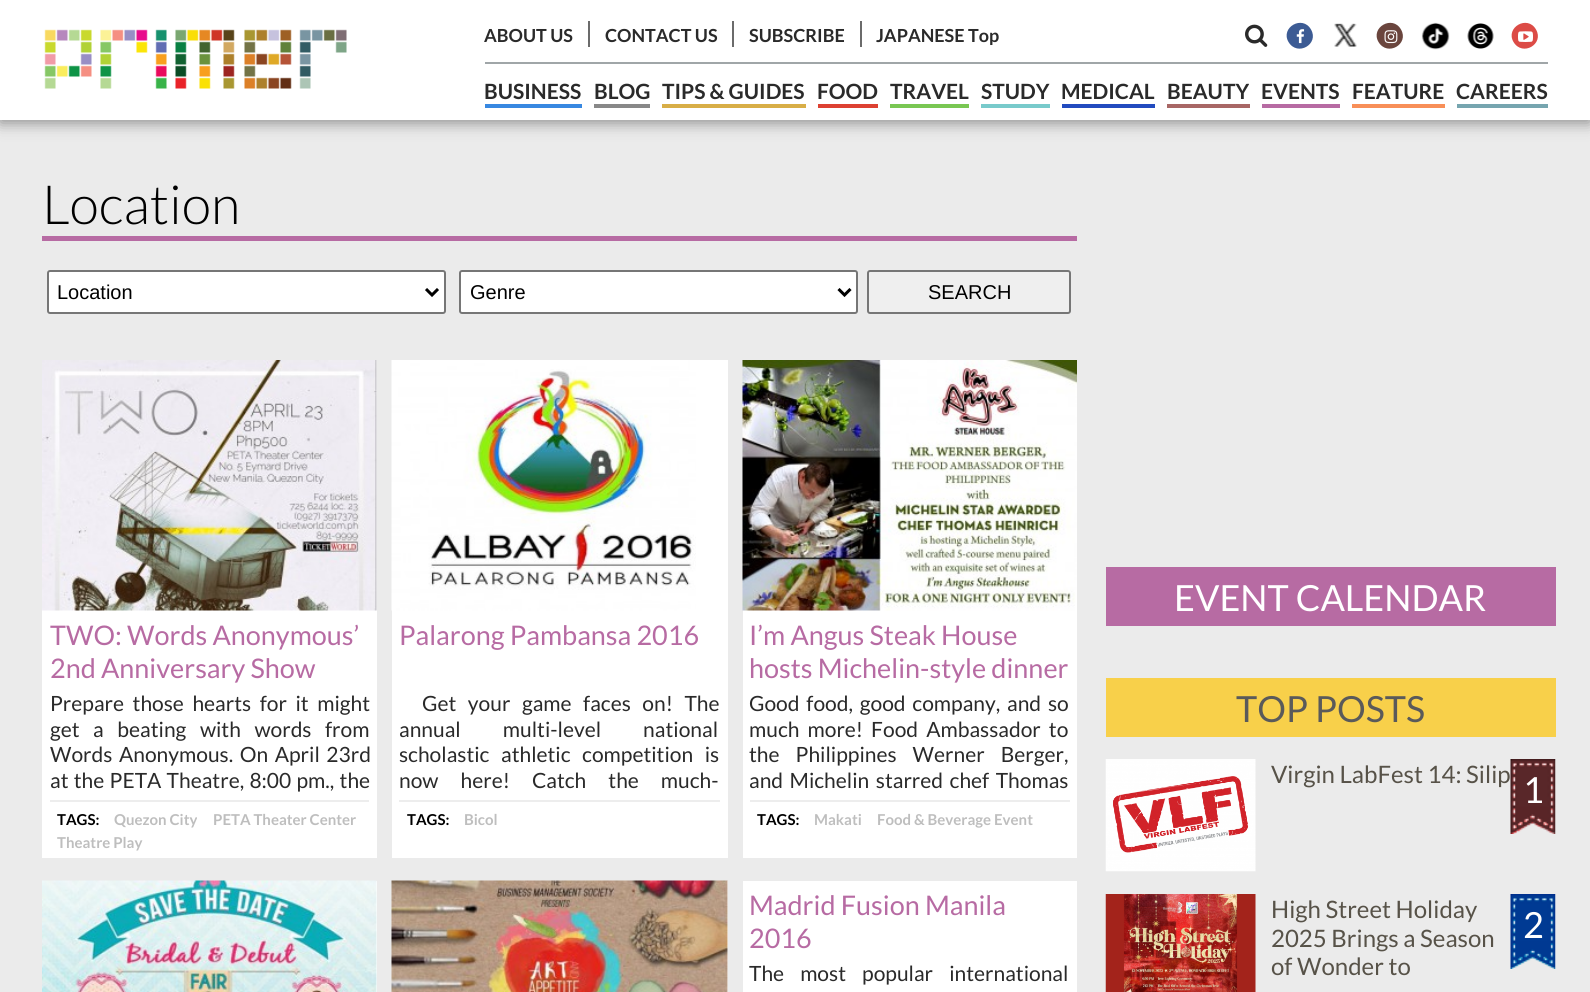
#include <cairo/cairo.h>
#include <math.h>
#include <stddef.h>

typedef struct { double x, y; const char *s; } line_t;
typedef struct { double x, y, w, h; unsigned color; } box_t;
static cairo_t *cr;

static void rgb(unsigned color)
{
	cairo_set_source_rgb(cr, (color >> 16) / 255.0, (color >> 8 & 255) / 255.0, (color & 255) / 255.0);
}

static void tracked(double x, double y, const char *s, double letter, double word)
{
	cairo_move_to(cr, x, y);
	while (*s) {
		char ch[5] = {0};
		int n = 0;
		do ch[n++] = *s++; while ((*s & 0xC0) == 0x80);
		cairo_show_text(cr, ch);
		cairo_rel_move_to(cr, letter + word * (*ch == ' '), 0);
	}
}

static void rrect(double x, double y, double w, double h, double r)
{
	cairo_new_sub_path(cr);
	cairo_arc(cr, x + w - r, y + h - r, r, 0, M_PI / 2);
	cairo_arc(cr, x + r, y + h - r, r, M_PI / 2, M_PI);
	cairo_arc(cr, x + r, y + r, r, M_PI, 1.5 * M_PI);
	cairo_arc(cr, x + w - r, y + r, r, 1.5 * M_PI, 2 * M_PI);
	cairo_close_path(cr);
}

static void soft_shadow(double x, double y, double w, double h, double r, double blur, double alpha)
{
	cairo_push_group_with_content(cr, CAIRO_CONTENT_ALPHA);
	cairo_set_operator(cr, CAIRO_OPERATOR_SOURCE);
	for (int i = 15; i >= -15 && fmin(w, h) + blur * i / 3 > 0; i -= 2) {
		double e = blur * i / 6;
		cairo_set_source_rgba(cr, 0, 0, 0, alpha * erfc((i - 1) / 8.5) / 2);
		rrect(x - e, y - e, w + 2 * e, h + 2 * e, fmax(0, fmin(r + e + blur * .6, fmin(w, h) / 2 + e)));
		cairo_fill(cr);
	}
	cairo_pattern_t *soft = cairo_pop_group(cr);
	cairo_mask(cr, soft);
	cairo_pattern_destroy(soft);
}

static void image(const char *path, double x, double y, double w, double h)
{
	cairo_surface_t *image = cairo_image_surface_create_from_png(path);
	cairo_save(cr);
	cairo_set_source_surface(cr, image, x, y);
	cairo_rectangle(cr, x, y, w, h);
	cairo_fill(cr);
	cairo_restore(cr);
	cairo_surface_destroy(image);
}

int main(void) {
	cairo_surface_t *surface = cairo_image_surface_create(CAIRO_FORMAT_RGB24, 1590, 992);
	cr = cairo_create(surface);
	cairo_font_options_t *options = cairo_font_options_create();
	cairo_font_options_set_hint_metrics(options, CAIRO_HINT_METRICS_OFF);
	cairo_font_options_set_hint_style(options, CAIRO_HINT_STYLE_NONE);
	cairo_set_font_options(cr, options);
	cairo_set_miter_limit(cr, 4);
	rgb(0xebebeb);
	cairo_paint(cr);
	rgb(0x000000);
	soft_shadow(0, 2, 1590, 121, 0, 7.5, 0.4);
	rgb(0xffffff);
	cairo_rectangle(cr, 0, 0, 1590, 120);
	cairo_fill(cr);
	image("img/1.png", 44, 29, 303, 60);
	{
		static const box_t items[] = {
			{485, 62, 1063, 2, 0xa0a6a8},
			{588, 21, 2, 26, 0x6b6b6b},
			{732, 21, 2, 26, 0x6b6b6b},
			{860, 21, 2, 26, 0x6b6b6b},
		};
		for (size_t i = 0; i < sizeof items / sizeof *items; i++) {
			rgb(items[i].color);
			cairo_rectangle(cr, items[i].x, items[i].y, items[i].w, items[i].h);
			cairo_fill(cr);
		}
	}
	image("img/2.png", 1245, 24, 23, 23);
	rgb(0x3c5b94);
	cairo_new_path(cr);
	cairo_move_to(cr, 1311, 29.5);
	cairo_curve_to(cr, 1319.5, 44, 1297.5, 57, 1288.5, 42);
	cairo_curve_to(cr, 1280, 27.5, 1302.5, 14.5, 1311, 29.5);
	cairo_close_path(cr);
	cairo_fill(cr);
	image("img/3.png", 1296, 29, 9, 15);
	image("img/4.png", 1334, 23, 23, 24);
	rgb(0x6a453d);
	cairo_new_path(cr);
	cairo_move_to(cr, 1401, 29.5);
	cairo_curve_to(cr, 1409.5, 44, 1387.5, 57, 1378.5, 42);
	cairo_curve_to(cr, 1370, 27.5, 1392.5, 14.5, 1401, 29.5);
	cairo_close_path(cr);
	cairo_fill(cr);
	image("img/5.png", 1384, 30, 14, 14);
	image("img/6.png", 1421, 22, 29, 28);
	image("img/7.png", 1467, 23, 27, 26);
	rgb(0xdc4b46);
	cairo_new_path(cr);
	cairo_move_to(cr, 1536, 29.5);
	cairo_curve_to(cr, 1544.5, 44, 1522.5, 57, 1513.5, 42);
	cairo_curve_to(cr, 1505, 27.5, 1527.5, 14.5, 1536, 29.5);
	cairo_close_path(cr);
	cairo_fill(cr);
	image("img/8.png", 1518, 31, 15, 11);
	{
		static const box_t items[] = {
			{485, 104, 97, 4, 0x3888e1},
			{594, 104, 56, 4, 0x888888},
			{662, 104, 144, 4, 0xd8ae47},
			{818, 104, 60, 4, 0xdd4132},
			{890, 104, 79, 4, 0x79c753},
			{981, 104, 69, 4, 0x78cacb},
			{1062, 104, 93, 4, 0x224bbf},
			{1167, 104, 83, 4, 0xa86765},
			{1262, 104, 78, 4, 0xb76ba3},
			{1352, 104, 93, 4, 0xf88f58},
			{1457, 104, 91, 4, 0x76a5af},
			{42, 236, 1035, 5, 0xb76ba3},
		};
		for (size_t i = 0; i < sizeof items / sizeof *items; i++) {
			rgb(items[i].color);
			cairo_rectangle(cr, items[i].x, items[i].y, items[i].w, items[i].h);
			cairo_fill(cr);
		}
	}
	rgb(0xffffff);
	rrect(48, 271, 397, 42, 2);
	cairo_fill_preserve(cr);
	rgb(0x767676);
	cairo_stroke(cr);
	cairo_new_path(cr);
	cairo_move_to(cr, 426, 289);
	cairo_line_to(cr, 432, 295);
	cairo_line_to(cr, 438, 289);
	rgb(0x000000);
	cairo_set_line_width(cr, 3);
	cairo_stroke(cr);
	rgb(0xffffff);
	rrect(460, 271, 397, 42, 2);
	cairo_fill_preserve(cr);
	rgb(0x767676);
	cairo_set_line_width(cr, 2);
	cairo_stroke(cr);
	cairo_new_path(cr);
	cairo_move_to(cr, 838.5, 289);
	cairo_line_to(cr, 844.5, 295);
	cairo_line_to(cr, 850.5, 289);
	rgb(0x000000);
	cairo_set_line_width(cr, 3);
	cairo_stroke(cr);
	rgb(0xefefef);
	rrect(868, 271, 202, 42, 2);
	cairo_fill_preserve(cr);
	rgb(0x767676);
	cairo_set_line_width(cr, 2);
	cairo_stroke(cr);
	rgb(0xffffff);
	cairo_rectangle(cr, 42, 360, 335, 498);
	cairo_fill(cr);
	image("img/9.png", 42, 360, 335, 251);
	rgb(0xededed);
	cairo_rectangle(cr, 50, 800, 319, 2);
	cairo_fill(cr);
	rgb(0xffffff);
	cairo_rectangle(cr, 392, 360, 336, 498);
	cairo_fill(cr);
	image("img/10.png", 391, 360, 305, 251);
	rgb(0xededed);
	cairo_rectangle(cr, 399, 800, 321, 2);
	cairo_fill(cr);
	rgb(0xffffff);
	cairo_rectangle(cr, 743, 610, 334, 248);
	cairo_fill(cr);
	image("img/11.png", 742, 360, 335, 251);
	rgb(0xededed);
	cairo_rectangle(cr, 750, 800, 320, 2);
	cairo_fill(cr);
	rgb(0xffffff);
	cairo_rectangle(cr, 376, 881, 1, 111);
	cairo_fill(cr);
	image("img/12.png", 42, 880, 335, 112);
	cairo_rectangle(cr, 727, 881, 1, 111);
	cairo_fill(cr);
	image("img/13.png", 391, 880, 337, 112);
	{
		static const box_t items[] = {
			{743, 881, 334, 111, 0xffffff},
			{1106, 567, 450, 59, 0xb76ba3},
			{1106, 678, 450, 59, 0xf8d04a},
		};
		for (size_t i = 0; i < sizeof items / sizeof *items; i++) {
			rgb(items[i].color);
			cairo_rectangle(cr, items[i].x, items[i].y, items[i].w, items[i].h);
			cairo_fill(cr);
		}
	}
	image("img/14.png", 1105, 759, 151, 113);
	image("img/15.png", 1510, 759, 46, 75);
	image("img/16.png", 1105, 894, 151, 98);
	image("img/17.png", 1510, 894, 46, 75);
	cairo_select_font_face(cr, "Lato", CAIRO_FONT_SLANT_NORMAL, CAIRO_FONT_WEIGHT_BOLD);
	cairo_set_font_size(cr, 18);
	rgb(0x2a2a2a);
	{
		static const line_t items[] = {
			{484, 42, "ABOUT US"},
			{605, 42, "CONTACT US"},
			{749, 42, "SUBSCRIBE"},
			{876, 42, "JAPANESE Top"},
		};
		for (size_t i = 0; i < sizeof items / sizeof *items; i++) {
			cairo_move_to(cr, items[i].x, items[i].y);
			cairo_show_text(cr, items[i].s);
		}
	}
	cairo_set_font_size(cr, 21);
	{
		static const line_t items[] = {
			{484, 99, "BUSINESS"},
			{594, 99, "BLOG"},
			{662, 99, "TIPS & GUIDES"},
			{817, 99, "FOOD"},
			{890, 99, "TRAVEL"},
			{981, 99, "STUDY"},
			{1061, 99, "MEDICAL"},
			{1167, 99, "BEAUTY"},
			{1261, 99, "EVENTS"},
			{1352, 99, "FEATURE"},
			{1456, 99, "CAREERS"},
		};
		for (size_t i = 0; i < sizeof items / sizeof *items; i++) {
			cairo_move_to(cr, items[i].x, items[i].y);
			cairo_show_text(cr, items[i].s);
		}
	}
	cairo_select_font_face(cr, "Lato Light", CAIRO_FONT_SLANT_NORMAL, CAIRO_FONT_WEIGHT_NORMAL);
	cairo_set_font_size(cr, 54);
	rgb(0x000000);
	cairo_move_to(cr, 42, 224);
	cairo_show_text(cr, "Location");
	cairo_select_font_face(cr, "Liberation Sans", CAIRO_FONT_SLANT_NORMAL, CAIRO_FONT_WEIGHT_NORMAL);
	cairo_set_font_size(cr, 20);
	{
		static const line_t items[] = {
			{57, 299, "Location"},
			{470, 299, "Genre"},
			{928, 299, "SEARCH"},
		};
		for (size_t i = 0; i < sizeof items / sizeof *items; i++) {
			cairo_move_to(cr, items[i].x, items[i].y);
			cairo_show_text(cr, items[i].s);
		}
	}
	cairo_select_font_face(cr, "Lato", CAIRO_FONT_SLANT_NORMAL, CAIRO_FONT_WEIGHT_NORMAL);
	cairo_set_font_size(cr, 27);
	rgb(0xb76ba3);
	cairo_move_to(cr, 50, 645);
	cairo_show_text(cr, "TWO: Words Anonymous’");
	cairo_move_to(cr, 50, 678);
	cairo_show_text(cr, "2nd Anniversary Show");
	cairo_set_font_size(cr, 21);
	rgb(0x2a2a2a);
	tracked(50, 711, "Prepare those hearts for it might", 0, 4.5);
	tracked(50, 737, "get a beating with words from", 0, 9.5);
	tracked(50, 762, "Words Anonymous. On April 23rd", 0, 2.5);
	tracked(50, 788, "at the PETA Theatre, 8:00 pm., the", 0, 1.25);
	cairo_select_font_face(cr, "Lato", CAIRO_FONT_SLANT_NORMAL, CAIRO_FONT_WEIGHT_BOLD);
	cairo_set_font_size(cr, 15);
	rgb(0x000000);
	cairo_move_to(cr, 57, 825);
	cairo_show_text(cr, "TAGS:");
	rgb(0xbebebe);
	{
		static const line_t items[] = {
			{114, 825, "Quezon City"},
			{213, 825, "PETA Theater Center"},
			{57, 848, "Theatre Play"},
		};
		for (size_t i = 0; i < sizeof items / sizeof *items; i++) {
			cairo_move_to(cr, items[i].x, items[i].y);
			cairo_show_text(cr, items[i].s);
		}
	}
	cairo_select_font_face(cr, "Lato", CAIRO_FONT_SLANT_NORMAL, CAIRO_FONT_WEIGHT_NORMAL);
	cairo_set_font_size(cr, 27);
	rgb(0xb76ba3);
	cairo_move_to(cr, 399, 645);
	cairo_show_text(cr, "Palarong Pambansa 2016");
	cairo_set_font_size(cr, 21);
	rgb(0x2a2a2a);
	tracked(422, 711, "Get your game faces on! The", 0, 7.5);
	tracked(399, 737, "annual multi-level national", 0, 38);
	tracked(399, 762, "scholastic athletic competition is", 0, 7.5);
	tracked(399, 788, "now here! Catch the much-", 0, 18);
	cairo_select_font_face(cr, "Lato", CAIRO_FONT_SLANT_NORMAL, CAIRO_FONT_WEIGHT_BOLD);
	cairo_set_font_size(cr, 15);
	rgb(0x000000);
	cairo_move_to(cr, 407, 825);
	cairo_show_text(cr, "TAGS:");
	rgb(0xbebebe);
	cairo_move_to(cr, 464, 825);
	cairo_show_text(cr, "Bicol");
	cairo_select_font_face(cr, "Lato", CAIRO_FONT_SLANT_NORMAL, CAIRO_FONT_WEIGHT_NORMAL);
	cairo_set_font_size(cr, 27);
	rgb(0xb76ba3);
	cairo_move_to(cr, 749, 645);
	cairo_show_text(cr, "I’m Angus Steak House");
	cairo_move_to(cr, 749, 678);
	cairo_show_text(cr, "hosts Michelin-style dinner");
	cairo_set_font_size(cr, 21);
	rgb(0x2a2a2a);
	tracked(749, 711, "Good food, good company, and so", 0, 2.75);
	tracked(749, 737, "much more! Food Ambassador to", 0, 4);
	tracked(749, 762, "the Philippines Werner Berger,", 0, 12);
	tracked(749, 788, "and Michelin starred chef Thomas", 0, 2.5);
	cairo_select_font_face(cr, "Lato", CAIRO_FONT_SLANT_NORMAL, CAIRO_FONT_WEIGHT_BOLD);
	cairo_set_font_size(cr, 15);
	rgb(0x000000);
	cairo_move_to(cr, 757, 825);
	cairo_show_text(cr, "TAGS:");
	rgb(0xbebebe);
	cairo_move_to(cr, 814, 825);
	cairo_show_text(cr, "Makati");
	cairo_move_to(cr, 877, 825);
	cairo_show_text(cr, "Food & Beverage Event");
	cairo_select_font_face(cr, "Lato", CAIRO_FONT_SLANT_NORMAL, CAIRO_FONT_WEIGHT_NORMAL);
	cairo_set_font_size(cr, 27);
	rgb(0xb76ba3);
	cairo_move_to(cr, 749, 915);
	cairo_show_text(cr, "Madrid Fusion Manila");
	cairo_move_to(cr, 749, 948);
	cairo_show_text(cr, "2016");
	cairo_set_font_size(cr, 21);
	rgb(0x2a2a2a);
	tracked(749, 981, "The most popular international", 0, 12);
	cairo_set_font_size(cr, 36);
	rgb(0xffffff);
	cairo_move_to(cr, 1174, 611);
	cairo_show_text(cr, "EVENT CALENDAR");
	rgb(0x5a5a5a);
	cairo_move_to(cr, 1236, 722);
	cairo_show_text(cr, "TOP POSTS");
	cairo_set_font_size(cr, 24);
	rgb(0x575248);
	cairo_move_to(cr, 1271, 783);
	cairo_show_text(cr, "Virgin LabFest 14: Silip");
	cairo_set_font_size(cr, 36);
	rgb(0xffffff);
	cairo_move_to(cr, 1523, 803);
	cairo_show_text(cr, "1");
	cairo_set_font_size(cr, 24);
	rgb(0x575248);
	{
		static const line_t items[] = {
			{1271, 918, "High Street Holiday"},
			{1271, 947, "2025 Brings a Season"},
			{1271, 975, "of Wonder to"},
		};
		for (size_t i = 0; i < sizeof items / sizeof *items; i++) {
			cairo_move_to(cr, items[i].x, items[i].y);
			cairo_show_text(cr, items[i].s);
		}
	}
	cairo_set_font_size(cr, 36);
	rgb(0xffffff);
	cairo_move_to(cr, 1523, 938);
	cairo_show_text(cr, "2");
	cairo_surface_write_to_png(surface, "page.png");
	cairo_font_options_destroy(options);
	cairo_destroy(cr);
	cairo_surface_destroy(surface);
	return 0;
}
